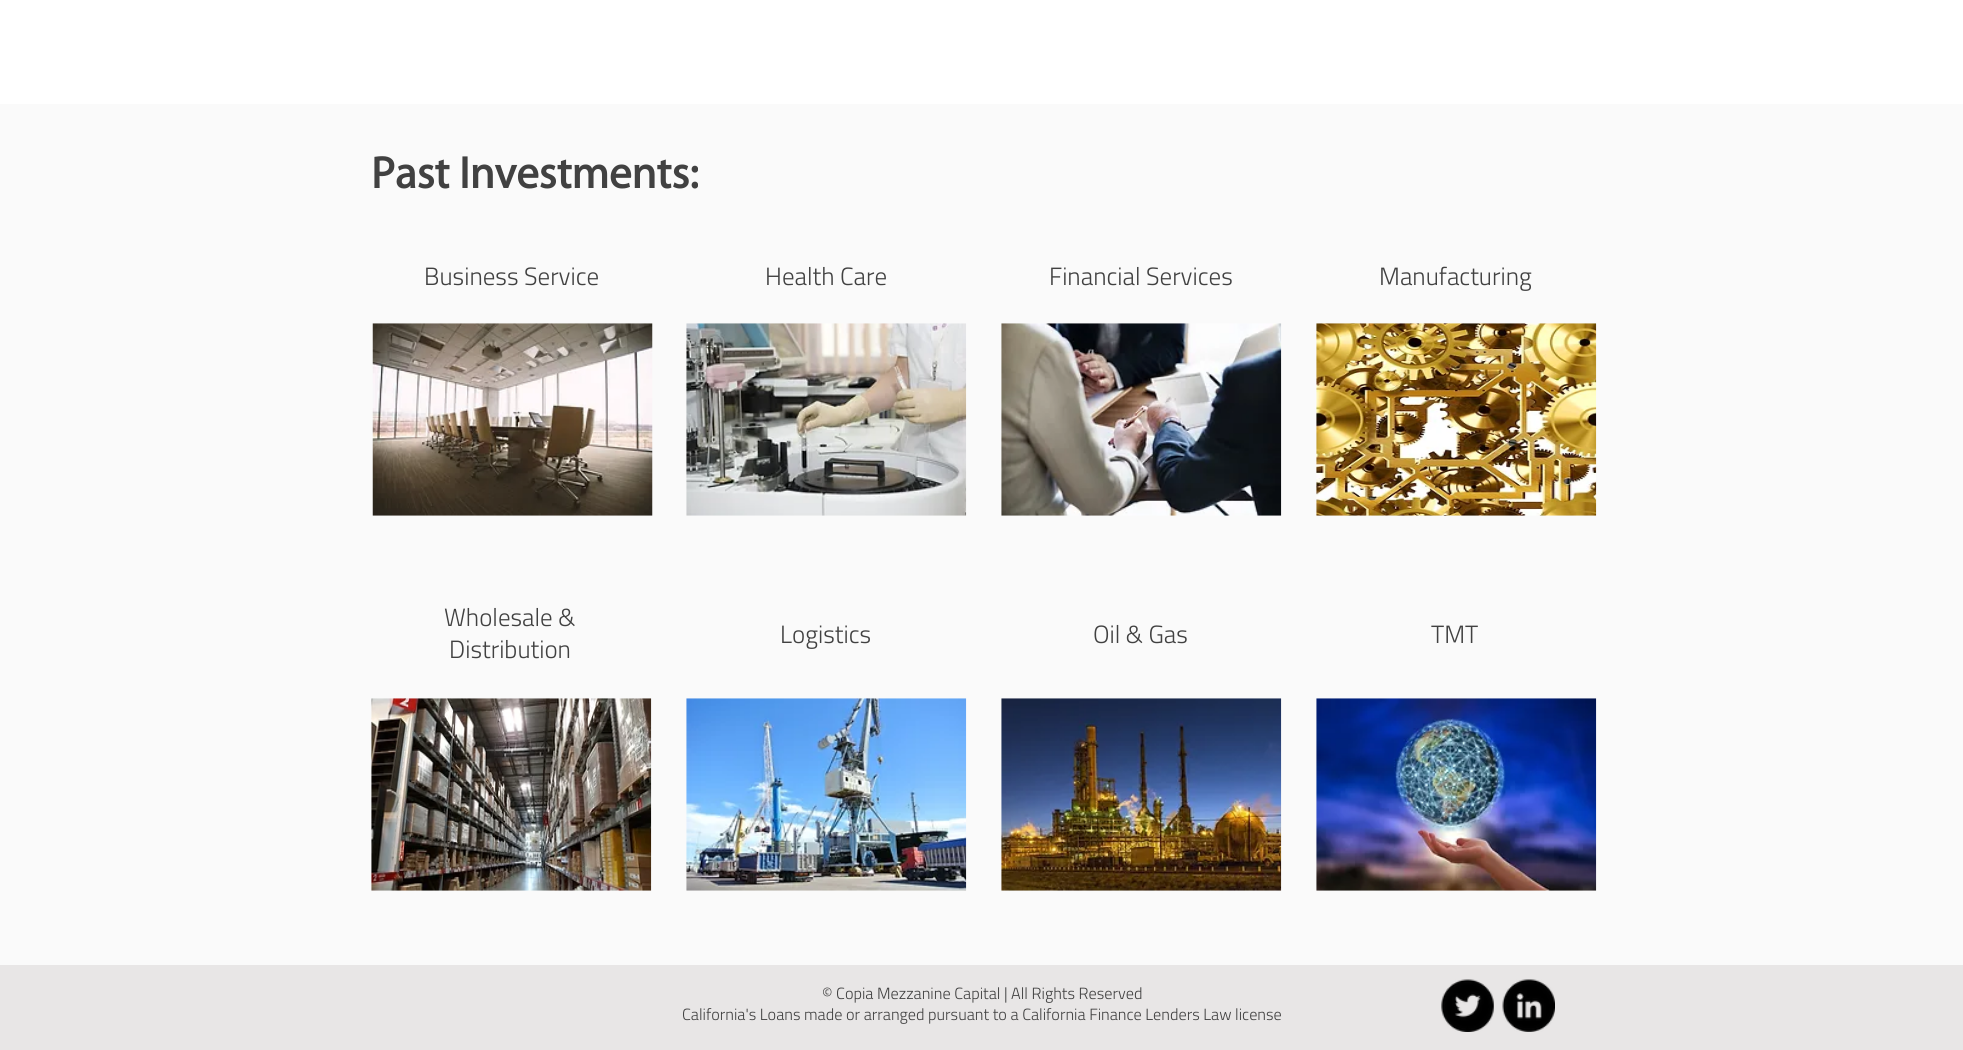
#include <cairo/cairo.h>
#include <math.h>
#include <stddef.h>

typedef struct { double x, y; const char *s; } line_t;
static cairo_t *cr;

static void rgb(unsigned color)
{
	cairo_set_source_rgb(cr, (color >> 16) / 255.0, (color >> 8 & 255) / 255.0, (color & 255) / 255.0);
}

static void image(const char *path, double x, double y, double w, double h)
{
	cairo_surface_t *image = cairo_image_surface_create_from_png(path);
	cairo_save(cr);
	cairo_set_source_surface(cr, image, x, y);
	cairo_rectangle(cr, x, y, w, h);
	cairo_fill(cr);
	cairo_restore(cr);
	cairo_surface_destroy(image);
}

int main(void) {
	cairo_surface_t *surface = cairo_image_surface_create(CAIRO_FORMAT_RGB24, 1963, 1050);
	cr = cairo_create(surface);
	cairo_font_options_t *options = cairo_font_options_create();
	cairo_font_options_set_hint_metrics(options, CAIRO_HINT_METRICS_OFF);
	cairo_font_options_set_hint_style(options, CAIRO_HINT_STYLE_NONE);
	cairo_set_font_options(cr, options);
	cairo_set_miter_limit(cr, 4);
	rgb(0xffffff);
	cairo_paint(cr);
	rgb(0xfafafa);
	cairo_rectangle(cr, 0, 104, 1963, 861);
	cairo_fill(cr);
	image("img/1.png", 372, 323, 281, 193);
	image("img/2.png", 686, 323, 281, 193);
	image("img/3.png", 1001, 323, 281, 193);
	image("img/4.png", 1316, 323, 281, 193);
	image("img/5.png", 371, 698, 281, 193);
	image("img/6.png", 686, 698, 281, 193);
	image("img/7.png", 1001, 698, 281, 193);
	image("img/8.png", 1316, 698, 281, 193);
	rgb(0xe8e6e6);
	cairo_rectangle(cr, 0, 965, 1963, 85);
	cairo_fill(cr);
	image("img/9.png", 1441, 979, 53, 53);
	image("img/10.png", 1502, 979, 53, 53);
	cairo_select_font_face(cr, "Myriad", CAIRO_FONT_SLANT_NORMAL, CAIRO_FONT_WEIGHT_BOLD);
	cairo_set_font_size(cr, 45);
	rgb(0x414141);
	cairo_move_to(cr, 371, 188);
	cairo_show_text(cr, "Past Investments:");
	cairo_select_font_face(cr, "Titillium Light", CAIRO_FONT_SLANT_NORMAL, CAIRO_FONT_WEIGHT_NORMAL);
	cairo_set_font_size(cr, 25);
	{
		static const line_t items[] = {
			{424, 285, "Business Service"},
			{765, 285, "Health Care"},
			{1049, 285, "Financial Services"},
			{1379, 285, "Manufacturing"},
			{444, 626, "Wholesale &"},
			{449, 658, "Distribution"},
			{780, 643, "Logistics"},
			{1093, 643, "Oil & Gas"},
			{1431, 643, "TMT"},
		};
		for (size_t i = 0; i < sizeof items / sizeof *items; i++) {
			cairo_move_to(cr, items[i].x, items[i].y);
			cairo_show_text(cr, items[i].s);
		}
	}
	cairo_set_font_size(cr, 16.25);
	cairo_move_to(cr, 822, 999);
	cairo_show_text(cr, "© Copia Mezzanine Capital | All Rights Reserved");
	cairo_move_to(cr, 682, 1020);
	cairo_show_text(cr, "California's Loans made or arranged pursuant to a California Finance Lenders Law license");
	cairo_surface_write_to_png(surface, "page.png");
	cairo_font_options_destroy(options);
	cairo_destroy(cr);
	cairo_surface_destroy(surface);
	return 0;
}
